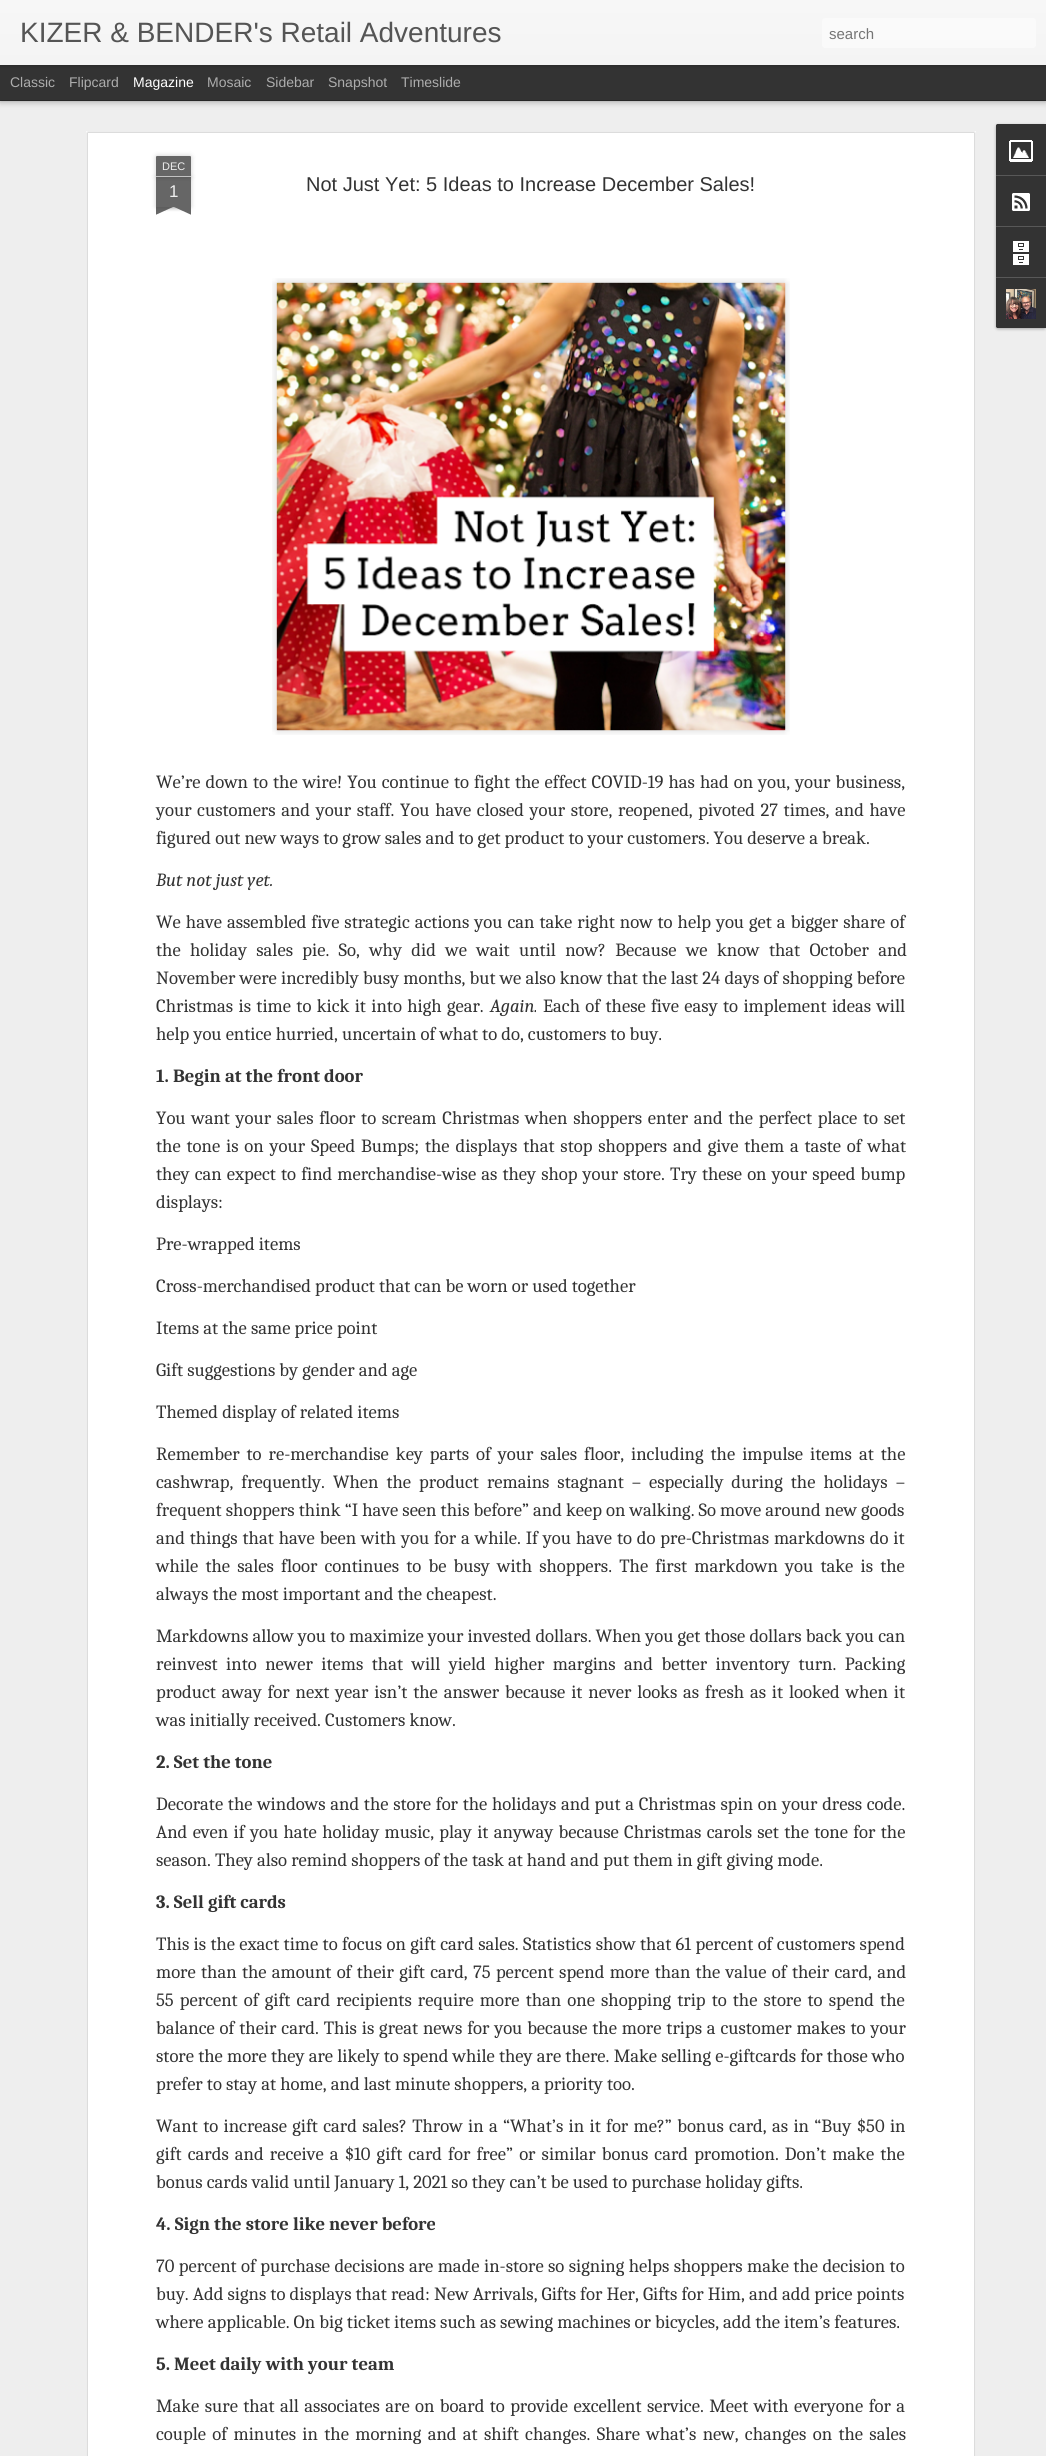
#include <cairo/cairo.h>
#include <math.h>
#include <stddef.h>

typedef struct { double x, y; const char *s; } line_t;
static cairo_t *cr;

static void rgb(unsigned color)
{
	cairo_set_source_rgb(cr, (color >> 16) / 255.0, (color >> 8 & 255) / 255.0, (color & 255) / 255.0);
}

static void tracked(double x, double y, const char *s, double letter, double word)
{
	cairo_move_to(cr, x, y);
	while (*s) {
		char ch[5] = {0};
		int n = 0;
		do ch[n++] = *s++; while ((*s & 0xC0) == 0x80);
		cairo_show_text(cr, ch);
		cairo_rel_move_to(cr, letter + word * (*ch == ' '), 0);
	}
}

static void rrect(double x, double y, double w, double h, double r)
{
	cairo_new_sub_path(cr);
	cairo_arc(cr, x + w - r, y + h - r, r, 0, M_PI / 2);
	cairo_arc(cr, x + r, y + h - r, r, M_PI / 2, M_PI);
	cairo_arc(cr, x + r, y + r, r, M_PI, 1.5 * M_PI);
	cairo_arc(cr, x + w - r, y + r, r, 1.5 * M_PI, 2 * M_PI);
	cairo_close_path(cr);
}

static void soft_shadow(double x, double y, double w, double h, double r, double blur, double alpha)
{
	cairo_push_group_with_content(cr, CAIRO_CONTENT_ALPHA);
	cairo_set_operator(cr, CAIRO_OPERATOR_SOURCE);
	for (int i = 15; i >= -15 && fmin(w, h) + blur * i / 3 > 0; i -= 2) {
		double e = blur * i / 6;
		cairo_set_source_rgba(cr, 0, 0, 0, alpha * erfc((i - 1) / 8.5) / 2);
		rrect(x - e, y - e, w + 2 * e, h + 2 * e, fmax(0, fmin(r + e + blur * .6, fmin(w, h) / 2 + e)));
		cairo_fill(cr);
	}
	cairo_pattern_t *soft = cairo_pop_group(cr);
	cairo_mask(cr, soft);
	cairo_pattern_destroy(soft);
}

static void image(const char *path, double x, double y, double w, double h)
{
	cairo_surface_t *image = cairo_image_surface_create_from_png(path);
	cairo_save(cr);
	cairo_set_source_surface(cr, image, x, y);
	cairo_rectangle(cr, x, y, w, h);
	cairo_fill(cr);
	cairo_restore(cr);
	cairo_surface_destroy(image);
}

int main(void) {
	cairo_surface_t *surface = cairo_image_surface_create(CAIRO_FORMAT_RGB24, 1046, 2456);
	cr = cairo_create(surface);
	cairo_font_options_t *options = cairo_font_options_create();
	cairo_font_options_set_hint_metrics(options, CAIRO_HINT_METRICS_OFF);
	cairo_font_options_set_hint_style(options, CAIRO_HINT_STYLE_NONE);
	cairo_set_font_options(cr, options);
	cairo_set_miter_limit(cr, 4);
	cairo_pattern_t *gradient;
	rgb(0x333333);
	cairo_paint(cr);
	rgb(0xeeeeee);
	cairo_rectangle(cr, 0, 101, 1046, 2355);
	cairo_fill(cr);
	rgb(0x000000);
	soft_shadow(0, 65, 1046, 35, 0, 4, 0.5);
	rgb(0x333333);
	cairo_rectangle(cr, 0, 65, 1046, 35);
	cairo_fill(cr);
	rgb(0x000000);
	soft_shadow(0, 0, 1046, 65, 0, 2.5, 0.3);
	gradient = cairo_pattern_create_linear(0, 0, 0, 65);
	cairo_pattern_add_color_stop_rgba(gradient, 0, 0.969, 0.969, 0.969, 1);
	cairo_pattern_add_color_stop_rgba(gradient, 1, 0.957, 0.957, 0.957, 1);
	cairo_set_source(cr, gradient);
	cairo_pattern_destroy(gradient);
	cairo_rectangle(cr, 0, 0, 1046, 65);
	cairo_fill(cr);
	rgb(0xfafafa);
	rrect(822, 18, 214, 30, 3);
	cairo_fill(cr);
	rgb(0xffffff);
	cairo_rectangle(cr, 86, 131, 890, 2325);
	cairo_fill(cr);
	image("img/1.png", 86, 131, 890, 2325);
	rgb(0x000000);
	soft_shadow(156, 177, 35, 30, 0, 2.5, 0.2);
	rgb(0x666666);
	cairo_rectangle(cr, 156, 177, 35, 30);
	cairo_fill(cr);
	rgb(0x000000);
	soft_shadow(156, 156, 35, 21, 1, 2.5, 0.2);
	rgb(0x666666);
	cairo_new_path(cr);
	cairo_move_to(cr, 157, 156);
	cairo_line_to(cr, 190, 156);
	cairo_curve_to(cr, 190.5, 156, 191, 156.5, 191, 157);
	cairo_line_to(cr, 191, 177);
	cairo_line_to(cr, 156, 177);
	cairo_line_to(cr, 156, 157);
	cairo_curve_to(cr, 156, 156.5, 156.5, 156, 157, 156);
	cairo_close_path(cr);
	cairo_fill(cr);
	rgb(0xc2c2c2);
	cairo_rectangle(cr, 156, 176, 35, 1);
	cairo_fill(cr);
	cairo_save(cr);
	cairo_rectangle(cr, 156, 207, 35, 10);
	cairo_clip(cr);
	rgb(0x000000);
	soft_shadow(147, 197, 50, 10, 0, 2.5, 0.2);
	cairo_restore(cr);
	cairo_save(cr);
	cairo_rectangle(cr, 156, 207, 35, 10);
	cairo_clip(cr);
	rgb(0x666666);
	cairo_new_path(cr);
	cairo_move_to(cr, 147, 208);
	cairo_line_to(cr, 193, 187);
	cairo_line_to(cr, 197, 196);
	cairo_line_to(cr, 151, 217);
	cairo_close_path(cr);
	cairo_fill(cr);
	cairo_restore(cr);
	cairo_save(cr);
	cairo_rectangle(cr, 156, 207, 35, 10);
	cairo_clip(cr);
	rgb(0x000000);
	soft_shadow(150, 197, 50, 10, 0, 2.5, 0.2);
	cairo_restore(cr);
	cairo_save(cr);
	cairo_rectangle(cr, 156, 207, 35, 10);
	cairo_clip(cr);
	rgb(0x666666);
	cairo_new_path(cr);
	cairo_move_to(cr, 154, 187);
	cairo_line_to(cr, 200, 208);
	cairo_line_to(cr, 196, 217);
	cairo_line_to(cr, 150, 196);
	cairo_close_path(cr);
	cairo_fill(cr);
	cairo_restore(cr);
	image("img/2.png", 272, 278, 518, 457);
	image("img/3.png", 276, 282, 510, 449);
	rgb(0x000000);
	soft_shadow(996, 125, 50, 204, 2, 1.5, 0.3);
	rgb(0x333333);
	cairo_new_path(cr);
	cairo_move_to(cr, 998, 124);
	cairo_line_to(cr, 1046, 124);
	cairo_line_to(cr, 1046, 328);
	cairo_line_to(cr, 998, 328);
	cairo_curve_to(cr, 997, 328, 996, 327, 996, 326);
	cairo_line_to(cr, 996, 126);
	cairo_curve_to(cr, 996, 125, 997, 124, 998, 124);
	cairo_close_path(cr);
	cairo_fill(cr);
	cairo_new_path(cr);
	cairo_move_to(cr, 998, 124);
	cairo_line_to(cr, 1046, 124);
	cairo_line_to(cr, 1046, 175);
	cairo_line_to(cr, 996, 175);
	cairo_line_to(cr, 996, 126);
	cairo_curve_to(cr, 996, 125, 997, 124, 998, 124);
	cairo_close_path(cr);
	cairo_fill(cr);
	image("img/4.png", 1009, 140, 24, 22);
	rgb(0x585858);
	cairo_rectangle(cr, 996, 175, 50, 1);
	cairo_fill(cr);
	image("img/5.png", 1012, 193, 18, 18);
	cairo_rectangle(cr, 996, 226, 50, 1);
	cairo_fill(cr);
	image("img/6.png", 1013, 241, 16, 24);
	rgb(0x333333);
	cairo_new_path(cr);
	cairo_move_to(cr, 996, 277);
	cairo_line_to(cr, 1046, 277);
	cairo_line_to(cr, 1046, 328);
	cairo_line_to(cr, 998, 328);
	cairo_curve_to(cr, 997, 328, 996, 327, 996, 326);
	cairo_close_path(cr);
	cairo_fill(cr);
	rgb(0x585858);
	cairo_rectangle(cr, 996, 277, 50, 1);
	cairo_fill(cr);
	image("img/7.png", 1006, 289, 30, 30);
	cairo_select_font_face(cr, "Liberation Sans", CAIRO_FONT_SLANT_NORMAL, CAIRO_FONT_WEIGHT_NORMAL);
	cairo_set_font_size(cr, 28);
	rgb(0x555555);
	cairo_move_to(cr, 20, 42);
	cairo_show_text(cr, "KIZER & BENDER's Retail Adventures");
	cairo_set_font_size(cr, 15);
	rgb(0x757575);
	cairo_move_to(cr, 829, 39);
	cairo_show_text(cr, "search");
	cairo_set_font_size(cr, 14);
	rgb(0xadadad);
	cairo_move_to(cr, 10, 87);
	cairo_show_text(cr, "Classic");
	cairo_move_to(cr, 69, 87);
	cairo_show_text(cr, "Flipcard");
	rgb(0xffffff);
	cairo_move_to(cr, 133, 87);
	cairo_show_text(cr, "Magazine");
	rgb(0xadadad);
	{
		static const line_t items[] = {
			{207, 87, "Mosaic"},
			{266, 87, "Sidebar"},
			{328, 87, "Snapshot"},
			{401, 87, "Timeslide"},
		};
		for (size_t i = 0; i < sizeof items / sizeof *items; i++) {
			cairo_move_to(cr, items[i].x, items[i].y);
			cairo_show_text(cr, items[i].s);
		}
	}
	cairo_set_font_size(cr, 11);
	rgb(0xeeeeee);
	cairo_move_to(cr, 162, 170);
	cairo_show_text(cr, "DEC");
	cairo_set_font_size(cr, 17);
	cairo_move_to(cr, 169, 197);
	cairo_show_text(cr, "1");
	cairo_set_font_size(cr, 20);
	rgb(0x333333);
	cairo_move_to(cr, 306, 191);
	cairo_show_text(cr, "Not Just Yet: 5 Ideas to Increase December Sales!");
	cairo_select_font_face(cr, "Caladea", CAIRO_FONT_SLANT_NORMAL, CAIRO_FONT_WEIGHT_NORMAL);
	cairo_set_font_size(cr, 18.65);
	tracked(156, 788, "We’re down to the wire! You continue to fight the effect COVID-19 has had on you, your business,", 0, 0.9);
	tracked(156, 816, "your customers and your staff. You have closed your store, reopened, pivoted 27 times, and have", 0, 1.5);
	cairo_move_to(cr, 156, 844);
	cairo_show_text(cr, "figured out new ways to grow sales and to get product to your customers. You deserve a break.");
	cairo_select_font_face(cr, "Caladea", CAIRO_FONT_SLANT_ITALIC, CAIRO_FONT_WEIGHT_NORMAL);
	cairo_move_to(cr, 156, 886);
	cairo_show_text(cr, "But not just yet.");
	cairo_select_font_face(cr, "Caladea", CAIRO_FONT_SLANT_NORMAL, CAIRO_FONT_WEIGHT_NORMAL);
	tracked(156, 928, "We have assembled five strategic actions you can take right now to help you get a bigger share of", 0, 0.9);
	tracked(156, 956, "the holiday sales pie. So, why did we wait until now? Because we know that October and", 0, 5.25);
	tracked(156, 984, "November were incredibly busy months, but we also know that the last 24 days of shopping before", 0, 0.1);
	tracked(156, 1012, "Christmas is time to kick it into high gear.", 0, 1.25);
	cairo_select_font_face(cr, "Caladea", CAIRO_FONT_SLANT_ITALIC, CAIRO_FONT_WEIGHT_NORMAL);
	cairo_move_to(cr, 490, 1012);
	cairo_show_text(cr, "Again.");
	cairo_select_font_face(cr, "Caladea", CAIRO_FONT_SLANT_NORMAL, CAIRO_FONT_WEIGHT_NORMAL);
	tracked(543, 1012, "Each of these five easy to implement ideas will", 0, 1.25);
	cairo_move_to(cr, 156, 1040);
	cairo_show_text(cr, "help you entice hurried, uncertain of what to do, customers to buy.");
	cairo_select_font_face(cr, "Caladea", CAIRO_FONT_SLANT_NORMAL, CAIRO_FONT_WEIGHT_BOLD);
	cairo_move_to(cr, 156, 1082);
	cairo_show_text(cr, "1. Begin at the front door");
	cairo_select_font_face(cr, "Caladea", CAIRO_FONT_SLANT_NORMAL, CAIRO_FONT_WEIGHT_NORMAL);
	tracked(156, 1124, "You want your sales floor to scream Christmas when shoppers enter and the perfect place to set", 0, 1.6);
	tracked(156, 1152, "the tone is on your Speed Bumps; the displays that stop shoppers and give them a taste of what", 0, 1.75);
	tracked(156, 1180, "they can expect to find merchandise-wise as they shop your store. Try these on your speed bump", 0, 1);
	{
		static const line_t items[] = {
			{156, 1208, "displays:"},
			{156, 1250, "Pre-wrapped items"},
			{156, 1292, "Cross-merchandised product that can be worn or used together"},
			{156, 1334, "Items at the same price point"},
			{156, 1376, "Gift suggestions by gender and age"},
			{156, 1418, "Themed display of related items"},
		};
		for (size_t i = 0; i < sizeof items / sizeof *items; i++) {
			cairo_move_to(cr, items[i].x, items[i].y);
			cairo_show_text(cr, items[i].s);
		}
	}
	tracked(156, 1460, "Remember to re-merchandise key parts of your sales floor, including the impulse items at the", 0, 2.9);
	tracked(156, 1488, "cashwrap, frequently. When the product remains stagnant – especially during the holidays –", 0, 3.9);
	cairo_move_to(cr, 156, 1516);
	cairo_show_text(cr, "frequent shoppers think “I have seen this before” and keep on walking. So move around new goods");
	tracked(156, 1544, "and things that have been with you for a while. If you have to do pre-Christmas markdowns do it", 0, 0.8);
	tracked(156, 1572, "while the sales floor continues to be busy with shoppers. The first markdown you take is the", 0, 3.1);
	cairo_move_to(cr, 156, 1600);
	cairo_show_text(cr, "always the most important and the cheapest.");
	cairo_move_to(cr, 156, 1642);
	cairo_show_text(cr, "Markdowns allow you to maximize your invested dollars. When you get those dollars back you can");
	tracked(156, 1670, "reinvest into newer items that will yield higher margins and better inventory turn. Packing", 0, 4.4);
	tracked(156, 1698, "product away for next year isn’t the answer because it never looks as fresh as it looked when it", 0, 1.75);
	cairo_move_to(cr, 156, 1726);
	cairo_show_text(cr, "was initially received. Customers know.");
	cairo_select_font_face(cr, "Caladea", CAIRO_FONT_SLANT_NORMAL, CAIRO_FONT_WEIGHT_BOLD);
	cairo_move_to(cr, 156, 1768);
	cairo_show_text(cr, "2. Set the tone");
	cairo_select_font_face(cr, "Caladea", CAIRO_FONT_SLANT_NORMAL, CAIRO_FONT_WEIGHT_NORMAL);
	tracked(156, 1810, "Decorate the windows and the store for the holidays and put a Christmas spin on your dress code.", 0, 0.6);
	tracked(156, 1838, "And even if you hate holiday music, play it anyway because Christmas carols set the tone for the", 0, 1.25);
	cairo_move_to(cr, 156, 1866);
	cairo_show_text(cr, "season. They also remind shoppers of the task at hand and put them in gift giving mode.");
	cairo_select_font_face(cr, "Caladea", CAIRO_FONT_SLANT_NORMAL, CAIRO_FONT_WEIGHT_BOLD);
	cairo_move_to(cr, 156, 1908);
	cairo_show_text(cr, "3. Sell gift cards");
	cairo_select_font_face(cr, "Caladea", CAIRO_FONT_SLANT_NORMAL, CAIRO_FONT_WEIGHT_NORMAL);
	tracked(156, 1950, "This is the exact time to focus on gift card sales. Statistics show that 61 percent of customers spend", 0, 0.25);
	tracked(156, 1978, "more than the amount of their gift card, 75 percent spend more than the value of their card, and", 0, 1.2);
	tracked(156, 2006, "55 percent of gift card recipients require more than one shopping trip to the store to spend the", 0, 2);
	tracked(156, 2034, "balance of their card. This is great news for you because the more trips a customer makes to your", 0, 0.75);
	tracked(156, 2062, "store the more they are likely to spend while they are there. Make selling e-giftcards for those who", 0, 0.1);
	cairo_move_to(cr, 156, 2090);
	cairo_show_text(cr, "prefer to stay at home, and last minute shoppers, a priority too.");
	tracked(156, 2132, "Want to increase gift card sales? Throw in a “What’s in it for me?” bonus card, as in “Buy $50 in", 0, 1.25);
	tracked(156, 2160, "gift cards and receive a $10 gift card for free” or similar bonus card promotion. Don’t make the", 0, 2);
	cairo_move_to(cr, 156, 2188);
	cairo_show_text(cr, "bonus cards valid until January 1, 2021 so they can’t be used to purchase holiday gifts.");
	cairo_select_font_face(cr, "Caladea", CAIRO_FONT_SLANT_NORMAL, CAIRO_FONT_WEIGHT_BOLD);
	cairo_move_to(cr, 156, 2230);
	cairo_show_text(cr, "4. Sign the store like never before");
	cairo_select_font_face(cr, "Caladea", CAIRO_FONT_SLANT_NORMAL, CAIRO_FONT_WEIGHT_NORMAL);
	tracked(156, 2272, "70 percent of purchase decisions are made in-store so signing helps shoppers make the decision to", 0, 0.3);
	cairo_move_to(cr, 156, 2300);
	cairo_show_text(cr, "buy. Add signs to displays that read: New Arrivals, Gifts for Her, Gifts for Him, and add price points");
	cairo_move_to(cr, 156, 2328);
	cairo_show_text(cr, "where applicable. On big ticket items such as sewing machines or bicycles, add the item’s features.");
	cairo_select_font_face(cr, "Caladea", CAIRO_FONT_SLANT_NORMAL, CAIRO_FONT_WEIGHT_BOLD);
	cairo_move_to(cr, 156, 2370);
	cairo_show_text(cr, "5. Meet daily with your team");
	cairo_select_font_face(cr, "Caladea", CAIRO_FONT_SLANT_NORMAL, CAIRO_FONT_WEIGHT_NORMAL);
	tracked(156, 2412, "Make sure that all associates are on board to provide excellent service. Meet with everyone for a", 0, 1.3);
	tracked(156, 2440, "couple of minutes in the morning and at shift changes. Share what’s new, changes on the sales", 0, 2.25);
	cairo_surface_write_to_png(surface, "page.png");
	cairo_font_options_destroy(options);
	cairo_destroy(cr);
	cairo_surface_destroy(surface);
	return 0;
}
